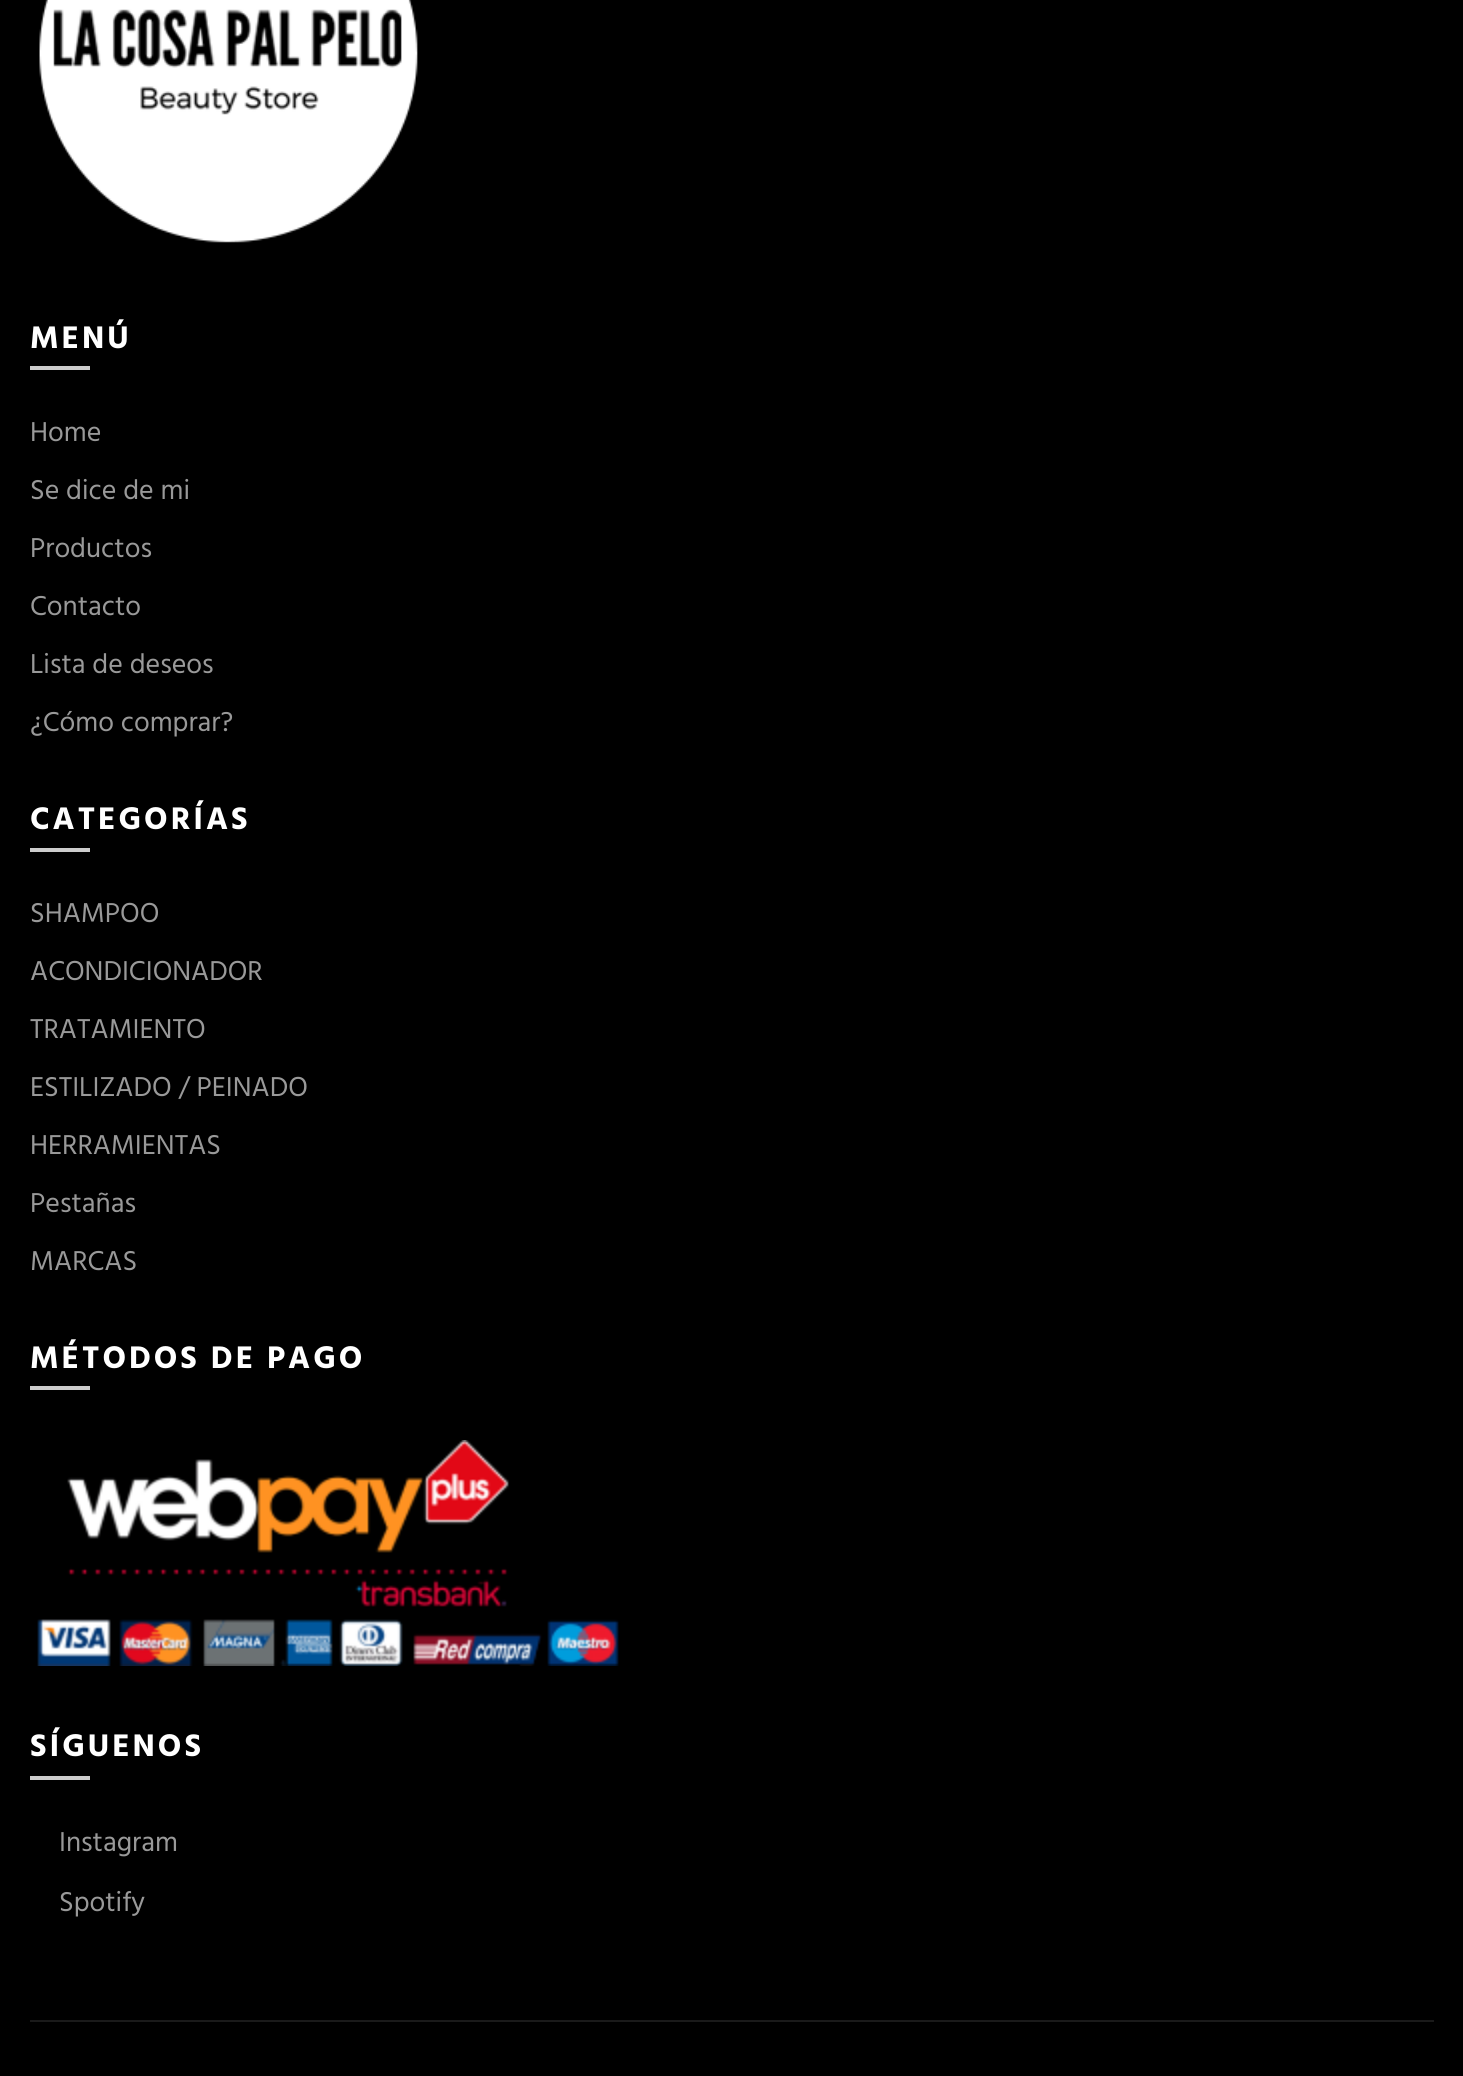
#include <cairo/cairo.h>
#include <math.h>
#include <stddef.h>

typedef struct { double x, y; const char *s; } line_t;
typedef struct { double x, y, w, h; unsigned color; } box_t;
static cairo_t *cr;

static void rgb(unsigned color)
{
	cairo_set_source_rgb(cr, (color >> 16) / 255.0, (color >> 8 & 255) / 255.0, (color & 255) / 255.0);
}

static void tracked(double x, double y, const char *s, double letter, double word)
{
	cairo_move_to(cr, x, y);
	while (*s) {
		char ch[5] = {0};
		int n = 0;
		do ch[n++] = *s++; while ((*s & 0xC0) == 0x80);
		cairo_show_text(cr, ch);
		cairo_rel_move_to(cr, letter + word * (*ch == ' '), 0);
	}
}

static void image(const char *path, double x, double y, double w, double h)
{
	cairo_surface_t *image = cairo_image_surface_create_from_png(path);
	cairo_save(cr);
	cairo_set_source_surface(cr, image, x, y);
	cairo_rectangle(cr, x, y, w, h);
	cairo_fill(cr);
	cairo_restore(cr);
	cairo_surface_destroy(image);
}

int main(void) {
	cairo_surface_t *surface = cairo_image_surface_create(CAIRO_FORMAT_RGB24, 1463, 2076);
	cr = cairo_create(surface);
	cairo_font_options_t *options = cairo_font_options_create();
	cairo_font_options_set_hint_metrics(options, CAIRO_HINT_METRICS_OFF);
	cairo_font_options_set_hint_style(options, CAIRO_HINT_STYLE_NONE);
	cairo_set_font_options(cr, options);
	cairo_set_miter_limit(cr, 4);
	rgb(0x000000);
	cairo_paint(cr);
	image("img/1.png", 39, 0, 379, 243);
	{
		static const box_t items[] = {
			{30, 366, 60, 4, 0xcccccc},
			{30, 848, 60, 4, 0xcccccc},
			{30, 1386, 60, 4, 0xcccccc},
		};
		for (size_t i = 0; i < sizeof items / sizeof *items; i++) {
			rgb(items[i].color);
			cairo_rectangle(cr, items[i].x, items[i].y, items[i].w, items[i].h);
			cairo_fill(cr);
		}
	}
	image("img/2.png", 37, 1440, 582, 226);
	cairo_rectangle(cr, 30, 1776, 60, 4);
	cairo_fill(cr);
	rgb(0x1a1a1a);
	cairo_rectangle(cr, 30, 2020, 1404, 2);
	cairo_fill(cr);
	cairo_select_font_face(cr, "Hind", CAIRO_FONT_SLANT_NORMAL, CAIRO_FONT_WEIGHT_BOLD);
	cairo_set_font_size(cr, 32);
	rgb(0xffffff);
	tracked(30, 348, "MENÚ", 3, 0);
	cairo_select_font_face(cr, "Hind", CAIRO_FONT_SLANT_NORMAL, CAIRO_FONT_WEIGHT_NORMAL);
	cairo_set_font_size(cr, 28);
	rgb(0x999999);
	{
		static const line_t items[] = {
			{30, 441, "Home"},
			{30, 499, "Se dice de mi"},
			{30, 557, "Productos"},
			{30, 615, "Contacto"},
			{30, 673, "Lista de deseos"},
			{30, 731, "¿Cómo comprar?"},
		};
		for (size_t i = 0; i < sizeof items / sizeof *items; i++) {
			cairo_move_to(cr, items[i].x, items[i].y);
			cairo_show_text(cr, items[i].s);
		}
	}
	cairo_select_font_face(cr, "Hind", CAIRO_FONT_SLANT_NORMAL, CAIRO_FONT_WEIGHT_BOLD);
	cairo_set_font_size(cr, 32);
	rgb(0xffffff);
	tracked(30, 829, "CATEGORÍAS", 3, 0);
	cairo_select_font_face(cr, "Hind", CAIRO_FONT_SLANT_NORMAL, CAIRO_FONT_WEIGHT_NORMAL);
	cairo_set_font_size(cr, 28);
	rgb(0x999999);
	{
		static const line_t items[] = {
			{30, 922, "SHAMPOO"},
			{30, 980, "ACONDICIONADOR"},
			{30, 1038, "TRATAMIENTO"},
			{30, 1096, "ESTILIZADO / PEINADO"},
			{30, 1154, "HERRAMIENTAS"},
			{30, 1212, "Pestañas"},
			{30, 1270, "MARCAS"},
		};
		for (size_t i = 0; i < sizeof items / sizeof *items; i++) {
			cairo_move_to(cr, items[i].x, items[i].y);
			cairo_show_text(cr, items[i].s);
		}
	}
	cairo_select_font_face(cr, "Hind", CAIRO_FONT_SLANT_NORMAL, CAIRO_FONT_WEIGHT_BOLD);
	cairo_set_font_size(cr, 32);
	rgb(0xffffff);
	tracked(30, 1368, "MÉTODOS DE PAGO", 3, 0);
	tracked(30, 1756, "SÍGUENOS", 3, 0);
	cairo_select_font_face(cr, "Hind", CAIRO_FONT_SLANT_NORMAL, CAIRO_FONT_WEIGHT_NORMAL);
	cairo_set_font_size(cr, 28);
	rgb(0x999999);
	cairo_move_to(cr, 59, 1851);
	cairo_show_text(cr, "Instagram");
	cairo_move_to(cr, 59, 1911);
	cairo_show_text(cr, "Spotify");
	cairo_surface_write_to_png(surface, "page.png");
	cairo_font_options_destroy(options);
	cairo_destroy(cr);
	cairo_surface_destroy(surface);
	return 0;
}
